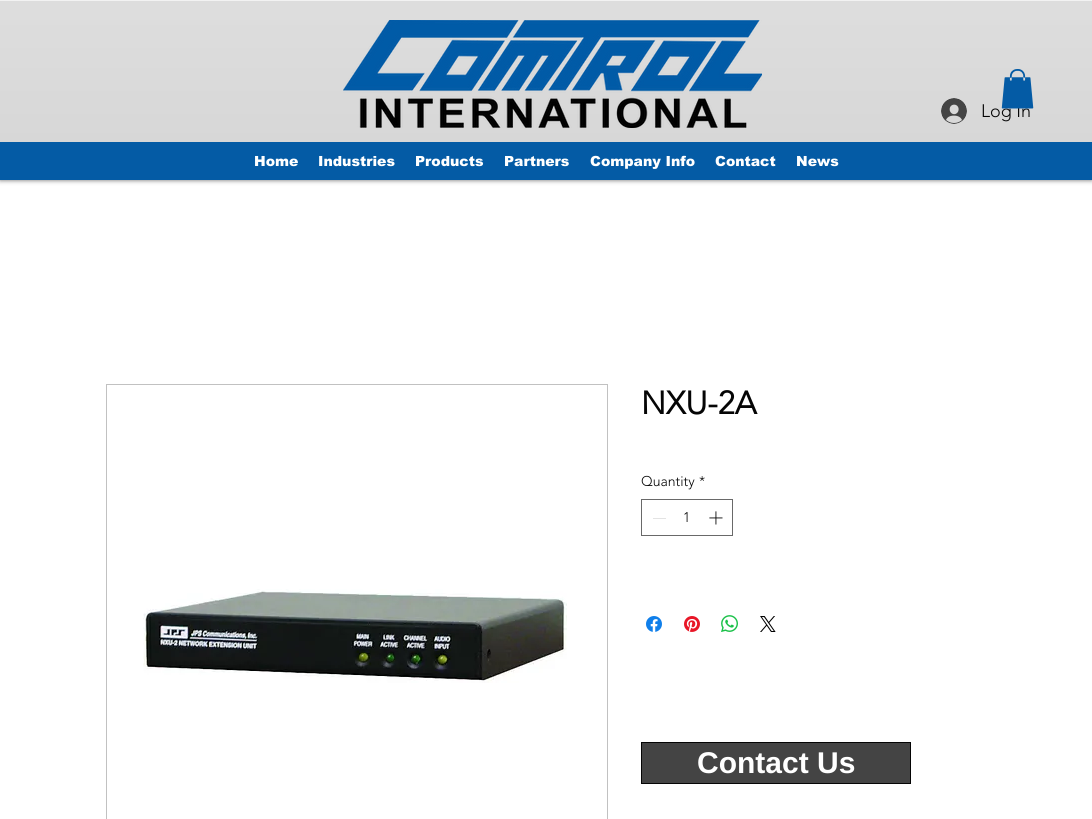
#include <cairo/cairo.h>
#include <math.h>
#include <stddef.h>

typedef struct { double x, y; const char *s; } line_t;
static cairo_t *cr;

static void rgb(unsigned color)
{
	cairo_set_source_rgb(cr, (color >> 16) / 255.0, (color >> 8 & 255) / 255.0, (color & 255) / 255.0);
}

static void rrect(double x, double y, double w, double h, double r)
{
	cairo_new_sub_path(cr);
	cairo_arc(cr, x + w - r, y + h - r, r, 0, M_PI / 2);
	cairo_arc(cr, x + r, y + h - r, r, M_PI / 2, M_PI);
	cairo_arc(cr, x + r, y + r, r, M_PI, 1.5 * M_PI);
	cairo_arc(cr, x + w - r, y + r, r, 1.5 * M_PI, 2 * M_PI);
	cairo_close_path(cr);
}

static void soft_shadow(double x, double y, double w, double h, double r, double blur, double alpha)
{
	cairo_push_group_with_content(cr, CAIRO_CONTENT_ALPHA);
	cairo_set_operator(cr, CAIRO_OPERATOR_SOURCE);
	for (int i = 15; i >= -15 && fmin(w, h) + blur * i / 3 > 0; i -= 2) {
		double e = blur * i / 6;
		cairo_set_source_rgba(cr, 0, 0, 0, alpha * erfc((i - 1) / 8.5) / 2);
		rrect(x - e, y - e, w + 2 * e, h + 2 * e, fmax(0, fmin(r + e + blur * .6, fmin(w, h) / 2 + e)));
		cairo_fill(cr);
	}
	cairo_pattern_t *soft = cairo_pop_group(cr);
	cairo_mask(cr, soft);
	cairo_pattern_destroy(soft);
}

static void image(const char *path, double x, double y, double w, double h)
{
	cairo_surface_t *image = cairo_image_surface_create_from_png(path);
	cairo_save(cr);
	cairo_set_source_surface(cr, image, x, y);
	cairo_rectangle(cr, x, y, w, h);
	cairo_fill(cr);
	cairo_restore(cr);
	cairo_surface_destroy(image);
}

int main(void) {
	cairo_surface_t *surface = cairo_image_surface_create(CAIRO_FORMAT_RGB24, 1092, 819);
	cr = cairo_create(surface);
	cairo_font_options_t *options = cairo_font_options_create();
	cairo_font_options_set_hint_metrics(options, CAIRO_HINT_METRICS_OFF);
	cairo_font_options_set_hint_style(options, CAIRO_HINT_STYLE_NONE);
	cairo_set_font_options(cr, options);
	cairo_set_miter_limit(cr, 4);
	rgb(0xffffff);
	cairo_paint(cr);
	rgb(0x000000);
	soft_shadow(0, 0, 1092, 180, 0, 2.5, 0.6);
	rgb(0xd2d2d2);
	cairo_rectangle(cr, 0, 1, 1092, 141);
	cairo_fill(cr);
	image("img/1.png", 0, 1, 1092, 141);
	rgb(0xf2f2f2);
	cairo_rectangle(cr, 0, 0, 1092, 1);
	cairo_fill(cr);
	image("img/2.png", 343, 20, 419, 108);
	image("img/4.png", 941, 98, 26, 26);
	rgb(0x045ba5);
	cairo_rectangle(cr, 0, 142, 1092, 38);
	cairo_fill(cr);
	cairo_rectangle(cr, 106.5, 384.5, 501, 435);
	rgb(0xc1c1c1);
	cairo_set_line_width(cr, 1);
	cairo_stroke(cr);
	image("img/5.png", 143, 589, 424, 94);
	cairo_rectangle(cr, 641.5, 499.5, 91, 36);
	rgb(0x696969);
	cairo_stroke(cr);
	rgb(0xe3e3e3);
	cairo_rectangle(cr, 653, 518, 13, 1);
	cairo_fill(cr);
	image("img/6.png", 709, 511, 14, 14);
	image("img/7.png", 646, 616, 16, 16);
	image("img/8.png", 684, 616, 16, 16);
	image("img/9.png", 721, 615, 17, 17);
	image("img/10.png", 760, 616, 16, 16);
	rgb(0x444444);
	cairo_rectangle(cr, 641.5, 742.5, 269, 41);
	cairo_fill_preserve(cr);
	rgb(0x050505);
	cairo_stroke(cr);
	cairo_select_font_face(cr, "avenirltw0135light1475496 Light", CAIRO_FONT_SLANT_NORMAL, CAIRO_FONT_WEIGHT_NORMAL);
	cairo_set_font_size(cr, 18);
	cairo_move_to(cr, 981, 117);
	cairo_show_text(cr, "Log In");
	image("img/3.png", 1001, 69, 33, 40);
	cairo_select_font_face(cr, "arial Black", CAIRO_FONT_SLANT_NORMAL, CAIRO_FONT_WEIGHT_NORMAL);
	cairo_set_font_size(cr, 14);
	rgb(0xffffff);
	{
		static const line_t items[] = {
			{254, 166, "Home"},
			{318, 166, "Industries"},
			{415, 166, "Products"},
			{504, 166, "Partners"},
			{590, 166, "Company Info"},
			{715, 166, "Contact"},
			{796, 166, "News"},
		};
		for (size_t i = 0; i < sizeof items / sizeof *items; i++) {
			cairo_move_to(cr, items[i].x, items[i].y);
			cairo_show_text(cr, items[i].s);
		}
	}
	cairo_select_font_face(cr, "avenirltw0135light1475496", CAIRO_FONT_SLANT_NORMAL, CAIRO_FONT_WEIGHT_BOLD);
	cairo_set_font_size(cr, 32);
	rgb(0x050505);
	cairo_move_to(cr, 641, 414);
	cairo_show_text(cr, "NXU-2A");
	cairo_select_font_face(cr, "avenirltw0135light1475496 Light", CAIRO_FONT_SLANT_NORMAL, CAIRO_FONT_WEIGHT_NORMAL);
	cairo_set_font_size(cr, 14);
	{
		static const line_t items[] = {
			{641, 486, "Quantity"},
			{699, 486, "*"},
			{683, 522, "1"},
		};
		for (size_t i = 0; i < sizeof items / sizeof *items; i++) {
			cairo_move_to(cr, items[i].x, items[i].y);
			cairo_show_text(cr, items[i].s);
		}
	}
	cairo_select_font_face(cr, "Liberation Sans", CAIRO_FONT_SLANT_NORMAL, CAIRO_FONT_WEIGHT_BOLD);
	cairo_set_font_size(cr, 30);
	rgb(0xffffff);
	cairo_move_to(cr, 697, 773);
	cairo_show_text(cr, "Contact Us");
	cairo_surface_write_to_png(surface, "page.png");
	cairo_font_options_destroy(options);
	cairo_destroy(cr);
	cairo_surface_destroy(surface);
	return 0;
}
